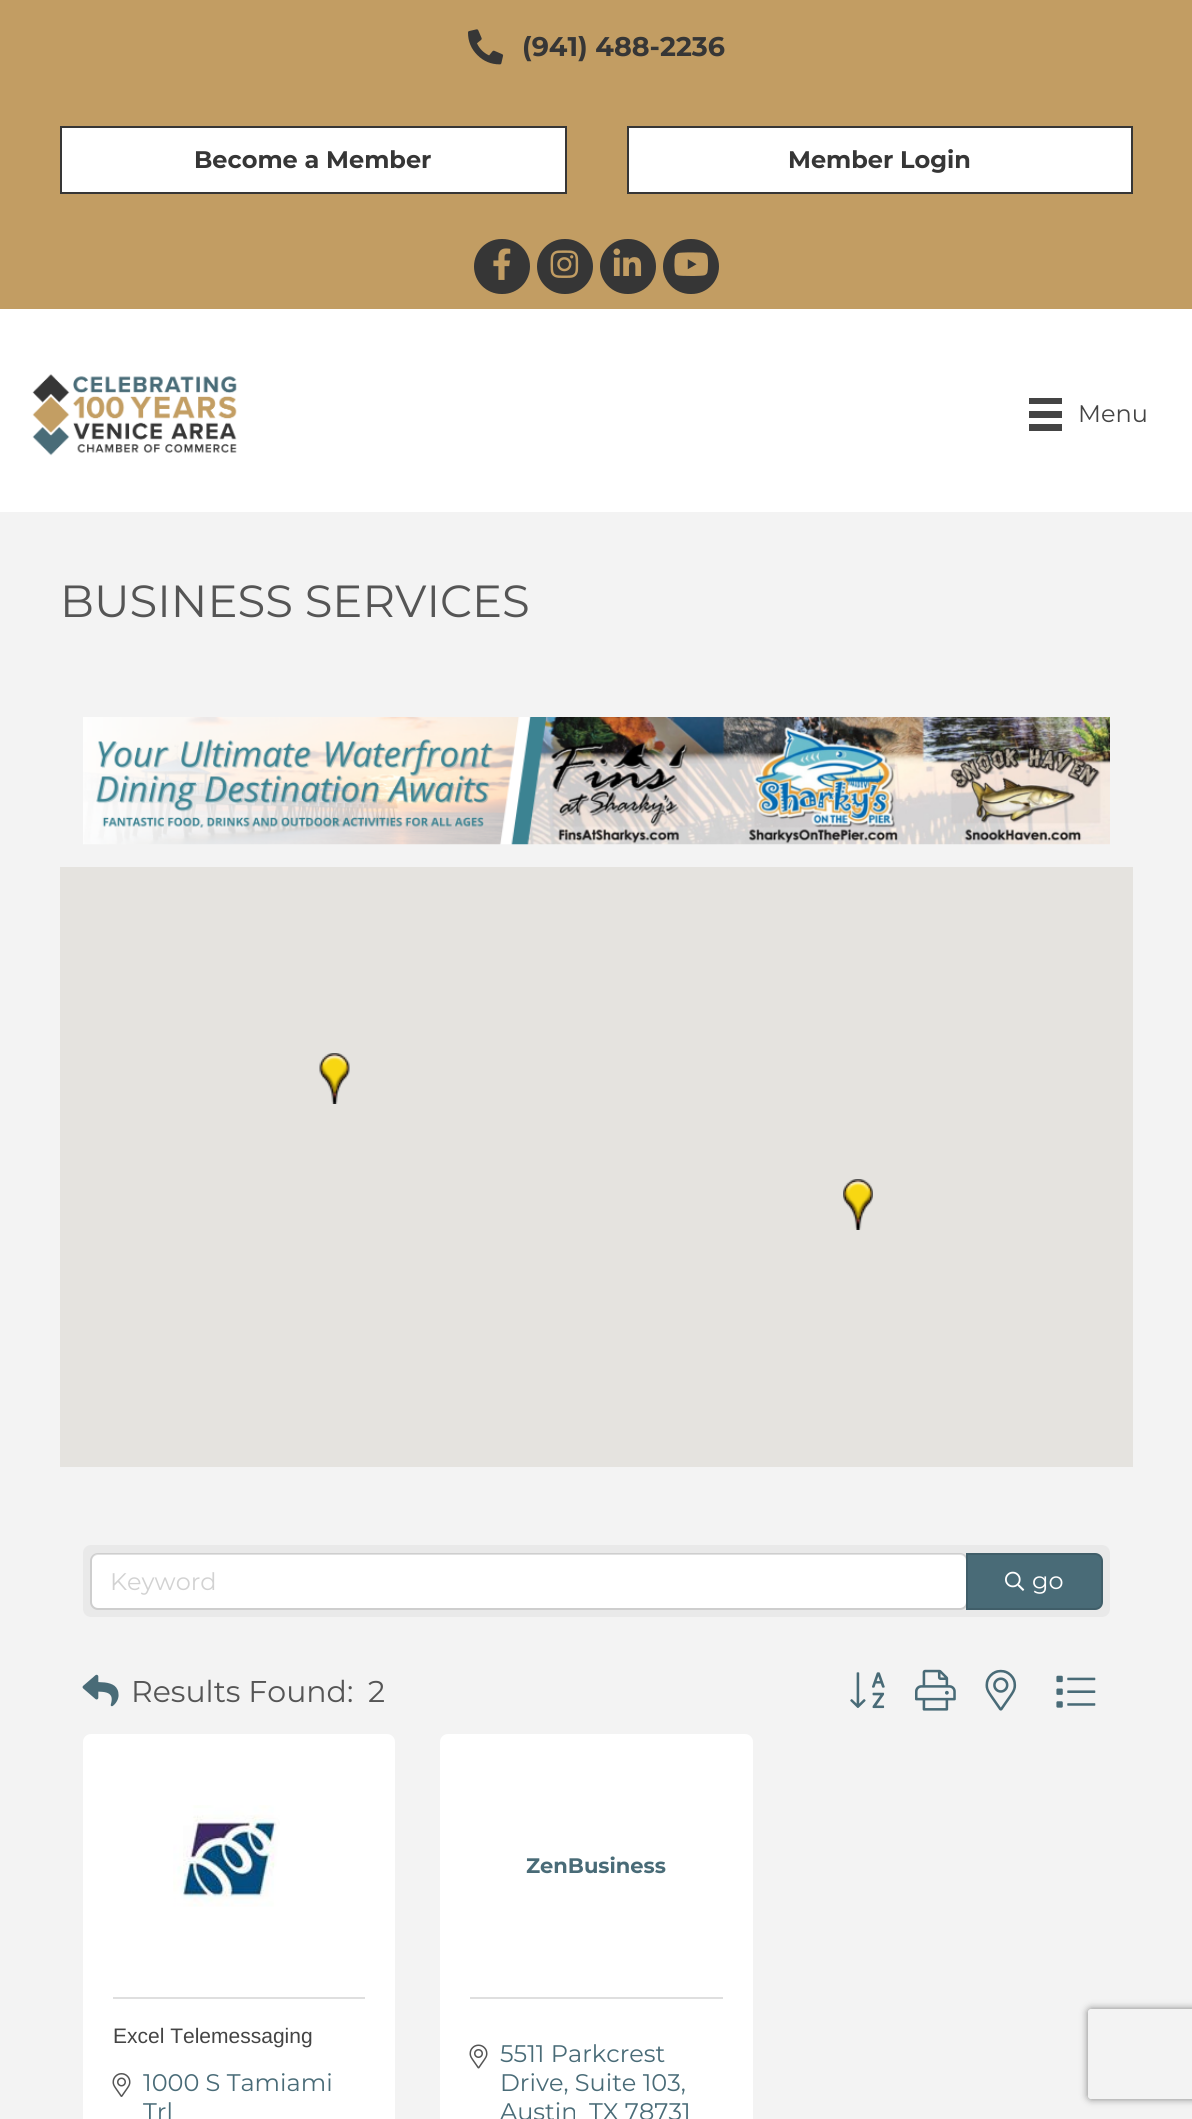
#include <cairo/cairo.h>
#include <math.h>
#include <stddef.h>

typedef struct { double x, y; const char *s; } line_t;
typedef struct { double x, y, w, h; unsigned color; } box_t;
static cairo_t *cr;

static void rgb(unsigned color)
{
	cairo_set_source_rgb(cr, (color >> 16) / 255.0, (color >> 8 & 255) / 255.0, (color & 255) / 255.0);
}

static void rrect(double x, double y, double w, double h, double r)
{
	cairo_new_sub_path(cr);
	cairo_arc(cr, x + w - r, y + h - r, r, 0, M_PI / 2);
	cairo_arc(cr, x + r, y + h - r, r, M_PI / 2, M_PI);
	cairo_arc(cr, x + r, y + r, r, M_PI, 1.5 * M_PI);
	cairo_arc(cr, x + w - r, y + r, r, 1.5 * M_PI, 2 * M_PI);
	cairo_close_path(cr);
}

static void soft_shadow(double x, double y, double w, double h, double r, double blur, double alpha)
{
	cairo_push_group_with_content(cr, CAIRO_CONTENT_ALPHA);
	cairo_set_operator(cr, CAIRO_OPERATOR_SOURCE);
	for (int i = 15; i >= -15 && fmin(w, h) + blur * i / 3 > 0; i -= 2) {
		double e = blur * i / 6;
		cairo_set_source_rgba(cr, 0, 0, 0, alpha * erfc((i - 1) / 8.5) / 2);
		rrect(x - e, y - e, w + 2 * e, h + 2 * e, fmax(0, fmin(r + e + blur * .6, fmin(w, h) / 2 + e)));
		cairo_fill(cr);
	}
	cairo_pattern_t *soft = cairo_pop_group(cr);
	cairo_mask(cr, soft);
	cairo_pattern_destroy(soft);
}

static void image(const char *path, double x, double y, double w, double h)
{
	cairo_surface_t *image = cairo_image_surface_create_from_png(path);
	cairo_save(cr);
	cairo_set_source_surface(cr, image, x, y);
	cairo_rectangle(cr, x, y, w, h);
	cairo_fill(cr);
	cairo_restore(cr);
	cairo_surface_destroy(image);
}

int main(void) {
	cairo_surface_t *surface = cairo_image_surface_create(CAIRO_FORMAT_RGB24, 1192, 2119);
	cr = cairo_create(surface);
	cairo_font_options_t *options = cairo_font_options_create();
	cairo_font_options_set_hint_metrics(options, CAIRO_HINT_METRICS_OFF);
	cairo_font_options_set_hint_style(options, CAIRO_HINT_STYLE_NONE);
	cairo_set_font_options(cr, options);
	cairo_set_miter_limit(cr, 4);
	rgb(0xffffff);
	cairo_paint(cr);
	rgb(0xc29d63);
	cairo_rectangle(cr, 0, 0, 1192, 309);
	cairo_fill(cr);
	image("img/1.png", 468, 29, 36, 36);
	rgb(0xffffff);
	cairo_rectangle(cr, 61, 127, 505, 66);
	cairo_fill_preserve(cr);
	rgb(0x363636);
	cairo_stroke(cr);
	rgb(0xffffff);
	cairo_rectangle(cr, 628, 127, 504, 66);
	cairo_fill_preserve(cr);
	rgb(0x363636);
	cairo_stroke(cr);
	rrect(474, 239, 56, 55, 27.5);
	cairo_fill(cr);
	image("img/2.png", 493, 248, 18, 32);
	rrect(537, 239, 56, 55, 27.5);
	cairo_fill(cr);
	image("img/3.png", 550, 250, 29, 28);
	rrect(600, 239, 56, 55, 27.5);
	cairo_fill(cr);
	image("img/4.png", 613, 248, 29, 28);
	rrect(663, 239, 56, 55, 27.5);
	cairo_fill(cr);
	image("img/5.png", 674, 252, 34, 24);
	image("img/6.png", 32, 374, 205, 82);
	{
		static const box_t items[] = {
			{1029, 398, 33, 6, 0x444444},
			{1029, 411, 33, 7, 0x444444},
			{1029, 424, 33, 7, 0x444444},
			{0, 512, 1192, 1607, 0xf3f3f3},
		};
		for (size_t i = 0; i < sizeof items / sizeof *items; i++) {
			rgb(items[i].color);
			cairo_rectangle(cr, items[i].x, items[i].y, items[i].w, items[i].h);
			cairo_fill(cr);
		}
	}
	image("img/7.png", 83, 717, 1027, 128);
	rgb(0xe5e3df);
	cairo_rectangle(cr, 60, 867, 1073, 600);
	cairo_fill(cr);
	image("img/8.png", 319, 1053, 31, 51);
	image("img/9.png", 843, 1179, 30, 51);
	rgb(0xe9e9e9);
	rrect(83, 1545, 1027, 72, 8);
	cairo_fill(cr);
	rgb(0xffffff);
	rrect(92, 1554, 874, 54, 6);
	cairo_fill(cr);
	rrect(91, 1554, 876, 55, 7);
	cairo_set_source_rgba(cr, 0, 0, 0, 0.12);
	cairo_stroke(cr);
	rgb(0x496b77);
	cairo_new_path(cr);
	cairo_move_to(cr, 966, 1553);
	cairo_line_to(cr, 1095, 1553);
	cairo_curve_to(cr, 1099.5, 1553, 1103, 1556.5, 1103, 1561);
	cairo_line_to(cr, 1103, 1602);
	cairo_curve_to(cr, 1103, 1606.5, 1099.5, 1610, 1095, 1610);
	cairo_line_to(cr, 966, 1610);
	cairo_close_path(cr);
	cairo_fill(cr);
	cairo_new_path(cr);
	cairo_move_to(cr, 967, 1554);
	cairo_line_to(cr, 1095, 1554);
	cairo_curve_to(cr, 1099, 1554, 1102, 1557, 1102, 1561);
	cairo_line_to(cr, 1102, 1602);
	cairo_curve_to(cr, 1102, 1606, 1099, 1609, 1095, 1609);
	cairo_line_to(cr, 967, 1609);
	cairo_close_path(cr);
	cairo_set_source_rgba(cr, 0, 0, 0, 0.12);
	cairo_stroke(cr);
	image("img/10.png", 1005, 1571, 20, 20);
	image("img/11.png", 82, 1674, 37, 33);
	image("img/12.png", 850, 1672, 35, 37);
	image("img/13.png", 915, 1669, 41, 42);
	image("img/14.png", 985, 1669, 32, 42);
	image("img/15.png", 1056, 1675, 40, 33);
	rgb(0xffffff);
	rrect(83, 1734, 312, 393, 8);
	cairo_fill(cr);
	image("img/16.png", 173, 1805, 107, 102);
	rgb(0xdfdfdf);
	cairo_rectangle(cr, 113, 1997, 252, 2);
	cairo_fill(cr);
	image("img/17.png", 112, 2073, 19, 24);
	rgb(0xffffff);
	rrect(440, 1734, 313, 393, 8);
	cairo_fill(cr);
	rgb(0xdfdfdf);
	cairo_rectangle(cr, 470, 1997, 253, 2);
	cairo_fill(cr);
	image("img/18.png", 469, 2044, 19, 25);
	cairo_save(cr);
	cairo_set_fill_rule(cr, CAIRO_FILL_RULE_EVEN_ODD);
	cairo_new_path(cr);
	cairo_move_to(cr, 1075, 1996);
	cairo_line_to(cr, 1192, 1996);
	cairo_line_to(cr, 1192, 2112);
	cairo_line_to(cr, 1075, 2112);
	cairo_close_path(cr);
	cairo_move_to(cr, 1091, 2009);
	cairo_line_to(cr, 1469, 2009);
	cairo_curve_to(cr, 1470.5, 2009, 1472, 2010.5, 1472, 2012);
	cairo_line_to(cr, 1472, 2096);
	cairo_curve_to(cr, 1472, 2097.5, 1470.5, 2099, 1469, 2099);
	cairo_line_to(cr, 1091, 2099);
	cairo_curve_to(cr, 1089.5, 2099, 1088, 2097.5, 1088, 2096);
	cairo_line_to(cr, 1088, 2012);
	cairo_curve_to(cr, 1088, 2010.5, 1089.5, 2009, 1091, 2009);
	cairo_close_path(cr);
	cairo_clip(cr);
	rgb(0x808080);
	soft_shadow(1088, 2009, 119, 90, 3, 4, 1);
	cairo_restore(cr);
	cairo_select_font_face(cr, "Montserrat", CAIRO_FONT_SLANT_NORMAL, CAIRO_FONT_WEIGHT_BOLD);
	cairo_set_font_size(cr, 27);
	rgb(0x363636);
	cairo_move_to(cr, 522, 56);
	cairo_show_text(cr, "(941) 488-2236");
	cairo_set_font_size(cr, 24);
	cairo_move_to(cr, 194, 168);
	cairo_show_text(cr, "Become a Member");
	cairo_move_to(cr, 788, 168);
	cairo_show_text(cr, "Member Login");
	cairo_select_font_face(cr, "Montserrat", CAIRO_FONT_SLANT_NORMAL, CAIRO_FONT_WEIGHT_NORMAL);
	rgb(0x444444);
	cairo_move_to(cr, 1078, 422);
	cairo_show_text(cr, "Menu");
	cairo_set_font_size(cr, 45);
	rgb(0x555555);
	cairo_move_to(cr, 60, 617);
	cairo_show_text(cr, "BUSINESS SERVICES");
	cairo_set_font_size(cr, 24);
	rgb(0xd2d2d2);
	cairo_move_to(cr, 110, 1590);
	cairo_show_text(cr, "Keyword");
	rgb(0xffffff);
	cairo_move_to(cr, 1032, 1589);
	cairo_show_text(cr, "go");
	cairo_set_font_size(cr, 30);
	rgb(0x555555);
	cairo_move_to(cr, 131, 1702);
	cairo_show_text(cr, "Results Found:");
	cairo_move_to(cr, 368, 1702);
	cairo_show_text(cr, "2");
	cairo_select_font_face(cr, "Liberation Sans", CAIRO_FONT_SLANT_NORMAL, CAIRO_FONT_WEIGHT_NORMAL);
	cairo_set_font_size(cr, 21);
	rgb(0x444444);
	cairo_move_to(cr, 113, 2043);
	cairo_show_text(cr, "Excel Telemessaging");
	cairo_select_font_face(cr, "Montserrat", CAIRO_FONT_SLANT_NORMAL, CAIRO_FONT_WEIGHT_NORMAL);
	cairo_set_font_size(cr, 24);
	rgb(0x496b77);
	cairo_move_to(cr, 143, 2091);
	cairo_show_text(cr, "1000 S Tamiami");
	cairo_move_to(cr, 143, 2120);
	cairo_show_text(cr, "Trl");
	cairo_select_font_face(cr, "Montserrat", CAIRO_FONT_SLANT_NORMAL, CAIRO_FONT_WEIGHT_BOLD);
	cairo_set_font_size(cr, 21);
	cairo_move_to(cr, 526, 1873);
	cairo_show_text(cr, "ZenBusiness");
	cairo_select_font_face(cr, "Montserrat", CAIRO_FONT_SLANT_NORMAL, CAIRO_FONT_WEIGHT_NORMAL);
	cairo_set_font_size(cr, 24);
	{
		static const line_t items[] = {
			{500, 2062, "5511 Parkcrest"},
			{500, 2091, "Drive, Suite 103,"},
			{500, 2120, "Austin"},
			{589, 2120, "TX 78731"},
		};
		for (size_t i = 0; i < sizeof items / sizeof *items; i++) {
			cairo_move_to(cr, items[i].x, items[i].y);
			cairo_show_text(cr, items[i].s);
		}
	}
	cairo_surface_write_to_png(surface, "page.png");
	cairo_font_options_destroy(options);
	cairo_destroy(cr);
	cairo_surface_destroy(surface);
	return 0;
}
